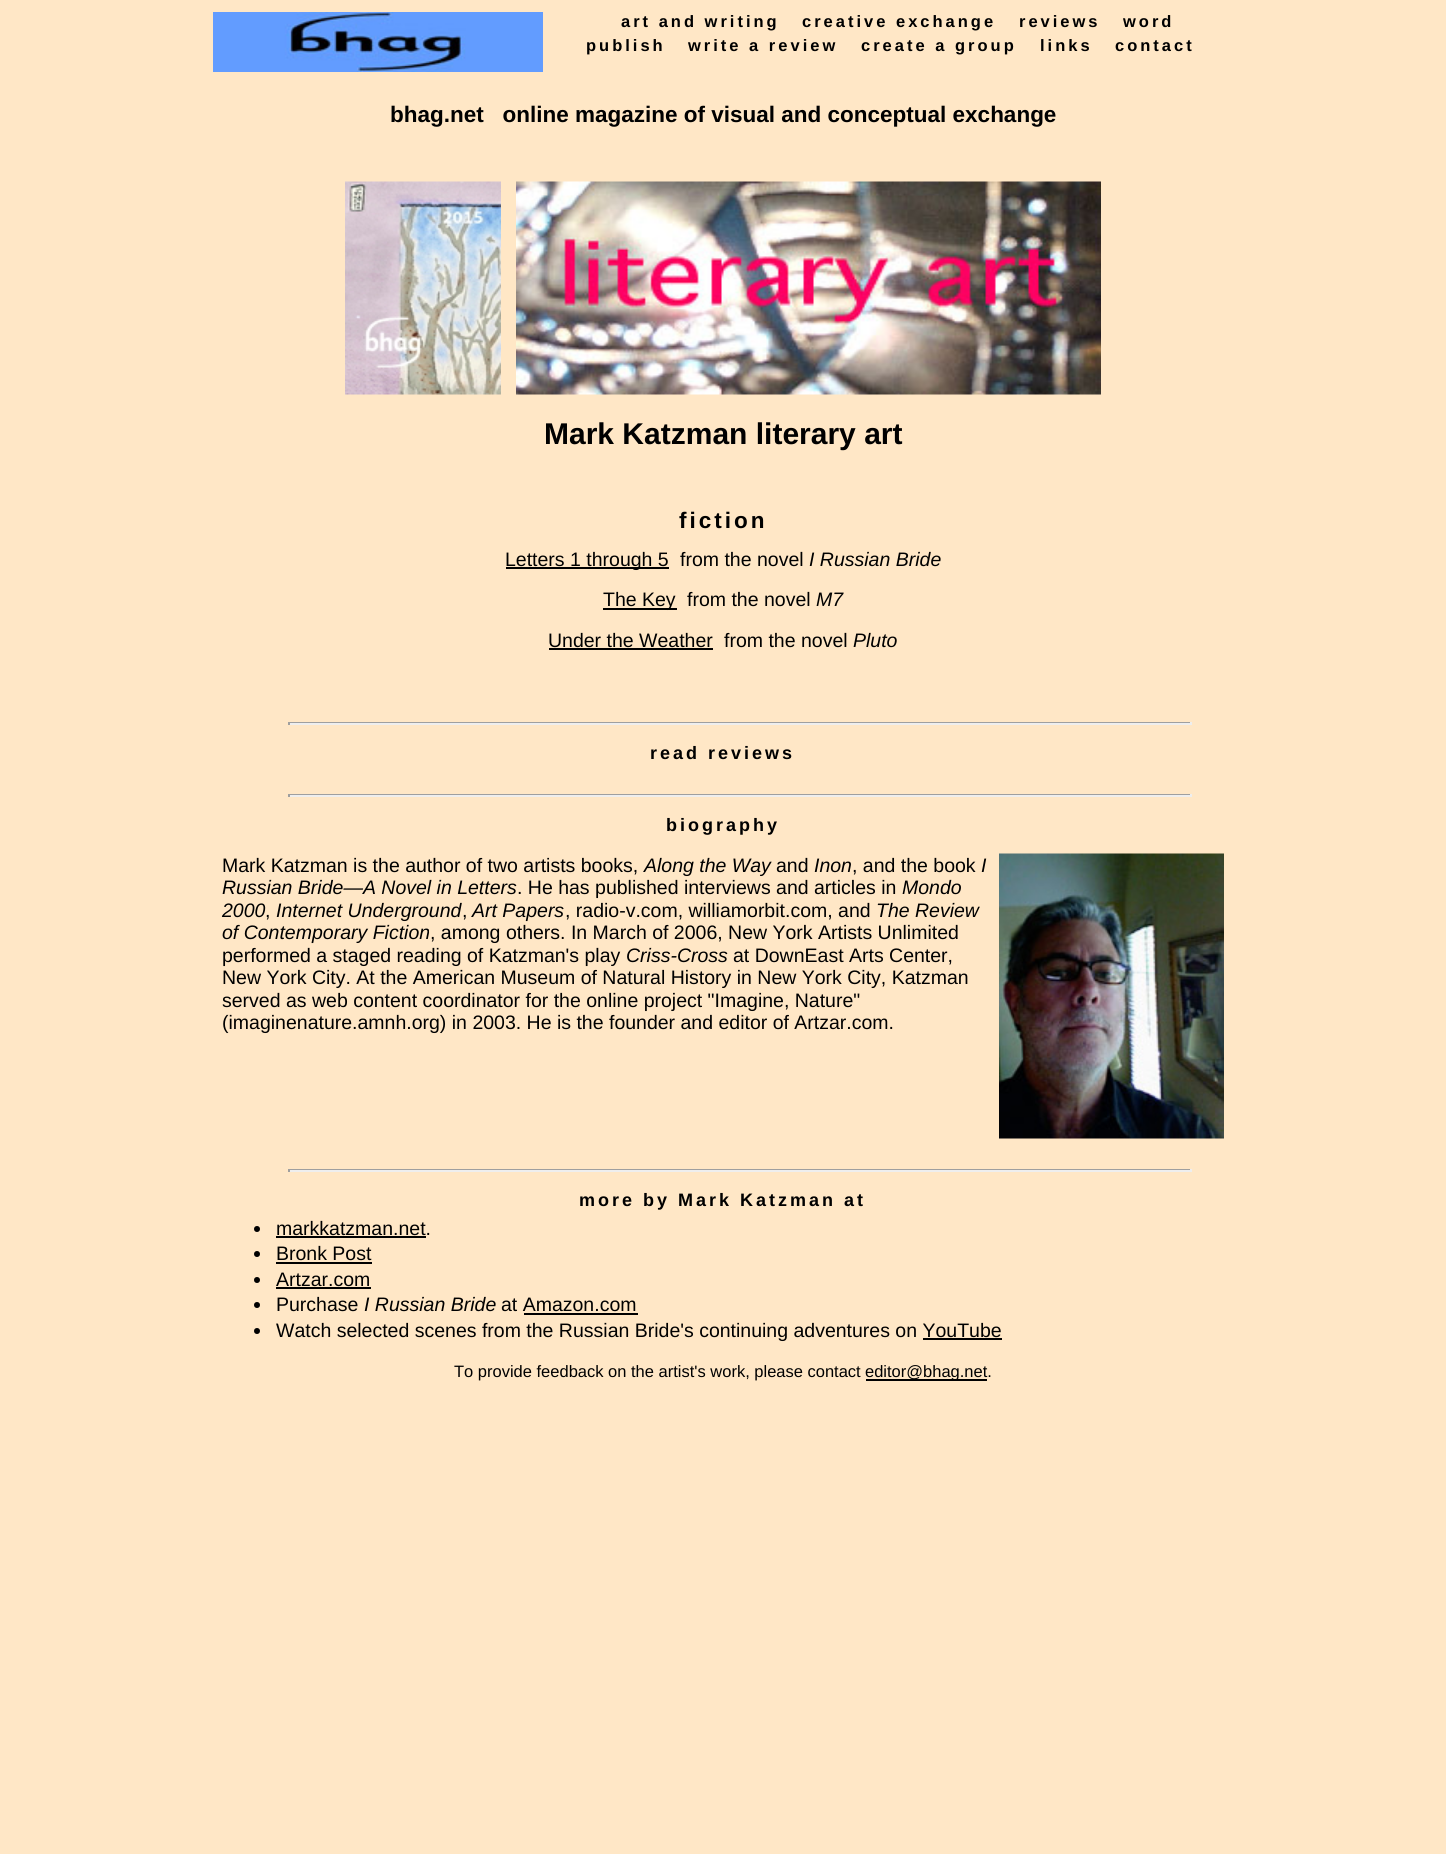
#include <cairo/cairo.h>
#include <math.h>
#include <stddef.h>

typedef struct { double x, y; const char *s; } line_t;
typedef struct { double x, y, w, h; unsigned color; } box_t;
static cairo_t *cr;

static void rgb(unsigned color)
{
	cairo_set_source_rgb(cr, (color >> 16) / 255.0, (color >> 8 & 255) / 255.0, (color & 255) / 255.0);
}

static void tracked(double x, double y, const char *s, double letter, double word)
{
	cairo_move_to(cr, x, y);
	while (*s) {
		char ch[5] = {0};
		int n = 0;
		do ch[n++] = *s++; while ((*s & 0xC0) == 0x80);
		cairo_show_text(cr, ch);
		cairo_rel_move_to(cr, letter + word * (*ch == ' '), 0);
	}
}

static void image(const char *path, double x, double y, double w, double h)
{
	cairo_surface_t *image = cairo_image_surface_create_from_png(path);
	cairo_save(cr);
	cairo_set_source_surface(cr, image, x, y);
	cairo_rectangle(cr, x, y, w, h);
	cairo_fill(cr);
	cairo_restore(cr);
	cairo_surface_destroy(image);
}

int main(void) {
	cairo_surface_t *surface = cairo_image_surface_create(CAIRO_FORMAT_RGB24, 1446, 1854);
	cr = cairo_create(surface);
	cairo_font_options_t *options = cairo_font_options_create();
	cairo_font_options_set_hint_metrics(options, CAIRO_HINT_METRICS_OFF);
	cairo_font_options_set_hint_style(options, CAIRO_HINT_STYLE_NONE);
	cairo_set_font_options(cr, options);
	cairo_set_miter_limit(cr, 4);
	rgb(0xffe7c6);
	cairo_paint(cr);
	image("img/1.png", 213, 12, 330, 60);
	image("img/2.png", 345, 181, 156, 214);
	image("img/3.png", 516, 181, 585, 214);
	{
		static const box_t items[] = {
			{506, 567, 163, 2, 0x000000},
			{603, 608, 74, 2, 0x000000},
			{549, 648, 164, 2, 0x000000},
			{288, 722, 903, 1, 0x9f9f9f},
			{1190, 722, 2, 3, 0xeeeeee},
			{288, 723, 903, 2, 0xeeeeee},
			{288, 722, 2, 3, 0x9f9f9f},
			{288, 794, 903, 1, 0x9f9f9f},
			{1190, 794, 2, 3, 0xeeeeee},
			{288, 795, 903, 2, 0xeeeeee},
			{288, 794, 2, 3, 0x9f9f9f},
		};
		for (size_t i = 0; i < sizeof items / sizeof *items; i++) {
			rgb(items[i].color);
			cairo_rectangle(cr, items[i].x, items[i].y, items[i].w, items[i].h);
			cairo_fill(cr);
		}
	}
	image("img/4.png", 999, 853, 225, 286);
	{
		static const box_t items[] = {
			{288, 1169, 903, 1, 0x9f9f9f},
			{1190, 1169, 2, 3, 0xeeeeee},
			{288, 1170, 903, 2, 0xeeeeee},
			{288, 1169, 2, 3, 0x9f9f9f},
		};
		for (size_t i = 0; i < sizeof items / sizeof *items; i++) {
			rgb(items[i].color);
			cairo_rectangle(cr, items[i].x, items[i].y, items[i].w, items[i].h);
			cairo_fill(cr);
		}
	}
	rgb(0x000000);
	cairo_arc(cr, 257, 1229, 3, 0, 2 * M_PI);
	cairo_fill(cr);
	cairo_rectangle(cr, 276, 1236, 150, 2);
	cairo_fill(cr);
	cairo_arc(cr, 257, 1254, 3, 0, 2 * M_PI);
	cairo_fill(cr);
	cairo_rectangle(cr, 276, 1262, 96, 2);
	cairo_fill(cr);
	cairo_arc(cr, 257, 1280, 3, 0, 2 * M_PI);
	cairo_fill(cr);
	cairo_rectangle(cr, 276, 1287, 95, 2);
	cairo_fill(cr);
	cairo_arc(cr, 257, 1305, 3, 0, 2 * M_PI);
	cairo_fill(cr);
	cairo_rectangle(cr, 524, 1313, 114, 2);
	cairo_fill(cr);
	cairo_arc(cr, 257, 1331, 3, 0, 2 * M_PI);
	cairo_fill(cr);
	cairo_rectangle(cr, 923, 1338, 79, 2);
	cairo_fill(cr);
	cairo_rectangle(cr, 866, 1379, 121, 2);
	cairo_fill(cr);
	cairo_select_font_face(cr, "Liberation Sans", CAIRO_FONT_SLANT_NORMAL, CAIRO_FONT_WEIGHT_BOLD);
	cairo_set_font_size(cr, 16.5);
	{
		static const line_t items[] = {
			{621, 27, "art and writing"},
			{802, 27, "creative exchange"},
			{1019, 27, "reviews"},
			{1123, 27, "word"},
			{586, 51, "publish"},
			{688, 51, "write a review"},
			{861, 51, "create a group"},
			{1040, 51, "links"},
			{1115, 51, "contact"},
		};
		for (size_t i = 0; i < sizeof items / sizeof *items; i++) {
			tracked(items[i].x, items[i].y, items[i].s, 3, 0);
		}
	}
	cairo_set_font_size(cr, 22.5);
	cairo_move_to(cr, 390, 122);
	cairo_show_text(cr, "bhag.net   online magazine of visual and conceptual exchange");
	cairo_set_font_size(cr, 30);
	cairo_move_to(cr, 544, 444);
	cairo_show_text(cr, "Mark Katzman literary art");
	cairo_set_font_size(cr, 22.5);
	tracked(679, 528, "fiction", 3, 0);
	cairo_select_font_face(cr, "Liberation Sans", CAIRO_FONT_SLANT_NORMAL, CAIRO_FONT_WEIGHT_NORMAL);
	cairo_set_font_size(cr, 19.5);
	cairo_move_to(cr, 505, 566);
	cairo_show_text(cr, "Letters 1 through 5");
	cairo_move_to(cr, 680, 566);
	cairo_show_text(cr, "from the novel");
	cairo_select_font_face(cr, "Liberation Sans", CAIRO_FONT_SLANT_ITALIC, CAIRO_FONT_WEIGHT_NORMAL);
	cairo_move_to(cr, 809, 566);
	cairo_show_text(cr, "I Russian Bride");
	cairo_select_font_face(cr, "Liberation Sans", CAIRO_FONT_SLANT_NORMAL, CAIRO_FONT_WEIGHT_NORMAL);
	cairo_move_to(cr, 603, 606);
	cairo_show_text(cr, "The Key");
	cairo_move_to(cr, 687, 606);
	cairo_show_text(cr, "from the novel");
	cairo_select_font_face(cr, "Liberation Sans", CAIRO_FONT_SLANT_ITALIC, CAIRO_FONT_WEIGHT_NORMAL);
	cairo_move_to(cr, 816, 606);
	cairo_show_text(cr, "M7");
	cairo_select_font_face(cr, "Liberation Sans", CAIRO_FONT_SLANT_NORMAL, CAIRO_FONT_WEIGHT_NORMAL);
	cairo_move_to(cr, 548, 647);
	cairo_show_text(cr, "Under the Weather");
	cairo_move_to(cr, 724, 647);
	cairo_show_text(cr, "from the novel");
	cairo_select_font_face(cr, "Liberation Sans", CAIRO_FONT_SLANT_ITALIC, CAIRO_FONT_WEIGHT_NORMAL);
	cairo_move_to(cr, 853, 647);
	cairo_show_text(cr, "Pluto");
	cairo_select_font_face(cr, "Liberation Sans", CAIRO_FONT_SLANT_NORMAL, CAIRO_FONT_WEIGHT_BOLD);
	cairo_set_font_size(cr, 18);
	tracked(650, 759, "read reviews", 3, 0);
	tracked(666, 831, "biography", 3, 0);
	cairo_select_font_face(cr, "Liberation Sans", CAIRO_FONT_SLANT_NORMAL, CAIRO_FONT_WEIGHT_NORMAL);
	cairo_set_font_size(cr, 19.5);
	cairo_move_to(cr, 222, 872);
	cairo_show_text(cr, "Mark Katzman is the author of two artists books,");
	cairo_select_font_face(cr, "Liberation Sans", CAIRO_FONT_SLANT_ITALIC, CAIRO_FONT_WEIGHT_NORMAL);
	cairo_move_to(cr, 644, 872);
	cairo_show_text(cr, "Along the Way");
	cairo_select_font_face(cr, "Liberation Sans", CAIRO_FONT_SLANT_NORMAL, CAIRO_FONT_WEIGHT_NORMAL);
	cairo_move_to(cr, 776, 872);
	cairo_show_text(cr, "and");
	cairo_select_font_face(cr, "Liberation Sans", CAIRO_FONT_SLANT_ITALIC, CAIRO_FONT_WEIGHT_NORMAL);
	cairo_move_to(cr, 814, 872);
	cairo_show_text(cr, "Inon");
	cairo_select_font_face(cr, "Liberation Sans", CAIRO_FONT_SLANT_NORMAL, CAIRO_FONT_WEIGHT_NORMAL);
	cairo_move_to(cr, 852, 872);
	cairo_show_text(cr, ", and the book");
	cairo_select_font_face(cr, "Liberation Sans", CAIRO_FONT_SLANT_ITALIC, CAIRO_FONT_WEIGHT_NORMAL);
	cairo_move_to(cr, 981, 872);
	cairo_show_text(cr, "I");
	cairo_move_to(cr, 222, 894);
	cairo_show_text(cr, "Russian Bride—A Novel in Letters");
	cairo_select_font_face(cr, "Liberation Sans", CAIRO_FONT_SLANT_NORMAL, CAIRO_FONT_WEIGHT_NORMAL);
	cairo_move_to(cr, 517, 894);
	cairo_show_text(cr, ". He has published interviews and articles in");
	cairo_select_font_face(cr, "Liberation Sans", CAIRO_FONT_SLANT_ITALIC, CAIRO_FONT_WEIGHT_NORMAL);
	cairo_move_to(cr, 902, 894);
	cairo_show_text(cr, "Mondo");
	cairo_move_to(cr, 222, 917);
	cairo_show_text(cr, "2000");
	cairo_select_font_face(cr, "Liberation Sans", CAIRO_FONT_SLANT_NORMAL, CAIRO_FONT_WEIGHT_NORMAL);
	cairo_move_to(cr, 265, 917);
	cairo_show_text(cr, ",");
	cairo_select_font_face(cr, "Liberation Sans", CAIRO_FONT_SLANT_ITALIC, CAIRO_FONT_WEIGHT_NORMAL);
	cairo_move_to(cr, 276, 917);
	cairo_show_text(cr, "Internet Underground");
	cairo_select_font_face(cr, "Liberation Sans", CAIRO_FONT_SLANT_NORMAL, CAIRO_FONT_WEIGHT_NORMAL);
	cairo_move_to(cr, 462, 917);
	cairo_show_text(cr, ",");
	cairo_select_font_face(cr, "Liberation Sans", CAIRO_FONT_SLANT_ITALIC, CAIRO_FONT_WEIGHT_NORMAL);
	cairo_move_to(cr, 472, 917);
	cairo_show_text(cr, "Art Papers");
	cairo_select_font_face(cr, "Liberation Sans", CAIRO_FONT_SLANT_NORMAL, CAIRO_FONT_WEIGHT_NORMAL);
	cairo_move_to(cr, 565, 917);
	cairo_show_text(cr, ", radio-v.com, williamorbit.com, and");
	cairo_select_font_face(cr, "Liberation Sans", CAIRO_FONT_SLANT_ITALIC, CAIRO_FONT_WEIGHT_NORMAL);
	cairo_move_to(cr, 876, 917);
	cairo_show_text(cr, "The Review");
	cairo_move_to(cr, 222, 939);
	cairo_show_text(cr, "of Contemporary Fiction");
	cairo_select_font_face(cr, "Liberation Sans", CAIRO_FONT_SLANT_NORMAL, CAIRO_FONT_WEIGHT_NORMAL);
	cairo_move_to(cr, 430, 939);
	cairo_show_text(cr, ", among others. In March of 2006, New York Artists Unlimited");
	cairo_move_to(cr, 222, 962);
	cairo_show_text(cr, "performed a staged reading of Katzman's play");
	cairo_select_font_face(cr, "Liberation Sans", CAIRO_FONT_SLANT_ITALIC, CAIRO_FONT_WEIGHT_NORMAL);
	cairo_move_to(cr, 626, 962);
	cairo_show_text(cr, "Criss-Cross");
	cairo_select_font_face(cr, "Liberation Sans", CAIRO_FONT_SLANT_NORMAL, CAIRO_FONT_WEIGHT_NORMAL);
	{
		static const line_t items[] = {
			{733, 962, "at DownEast Arts Center,"},
			{222, 984, "New York City. At the American Museum of Natural History in New York City, Katzman"},
			{222, 1007, "served as web content coordinator for the online project \"Imagine, Nature\""},
			{222, 1029, "(imaginenature.amnh.org) in 2003. He is the founder and editor of Artzar.com."},
		};
		for (size_t i = 0; i < sizeof items / sizeof *items; i++) {
			cairo_move_to(cr, items[i].x, items[i].y);
			cairo_show_text(cr, items[i].s);
		}
	}
	cairo_select_font_face(cr, "Liberation Sans", CAIRO_FONT_SLANT_NORMAL, CAIRO_FONT_WEIGHT_BOLD);
	cairo_set_font_size(cr, 18);
	tracked(579, 1206, "more by Mark Katzman at", 3, 0);
	cairo_select_font_face(cr, "Liberation Sans", CAIRO_FONT_SLANT_NORMAL, CAIRO_FONT_WEIGHT_NORMAL);
	cairo_set_font_size(cr, 19.5);
	{
		static const line_t items[] = {
			{276, 1235, "markkatzman.net."},
			{276, 1260, "Bronk Post"},
			{276, 1286, "Artzar.com"},
			{276, 1311, "Purchase"},
		};
		for (size_t i = 0; i < sizeof items / sizeof *items; i++) {
			cairo_move_to(cr, items[i].x, items[i].y);
			cairo_show_text(cr, items[i].s);
		}
	}
	cairo_select_font_face(cr, "Liberation Sans", CAIRO_FONT_SLANT_ITALIC, CAIRO_FONT_WEIGHT_NORMAL);
	cairo_move_to(cr, 364, 1311);
	cairo_show_text(cr, "I Russian Bride");
	cairo_select_font_face(cr, "Liberation Sans", CAIRO_FONT_SLANT_NORMAL, CAIRO_FONT_WEIGHT_NORMAL);
	cairo_move_to(cr, 501, 1311);
	cairo_show_text(cr, "at Amazon.com");
	cairo_move_to(cr, 276, 1337);
	cairo_show_text(cr, "Watch selected scenes from the Russian Bride's continuing adventures on YouTube");
	cairo_set_font_size(cr, 16.5);
	cairo_move_to(cr, 454, 1377);
	cairo_show_text(cr, "To provide feedback on the artist's work, please contact");
	cairo_move_to(cr, 865, 1377);
	cairo_show_text(cr, "editor@bhag.net.");
	cairo_surface_write_to_png(surface, "page.png");
	cairo_font_options_destroy(options);
	cairo_destroy(cr);
	cairo_surface_destroy(surface);
	return 0;
}
